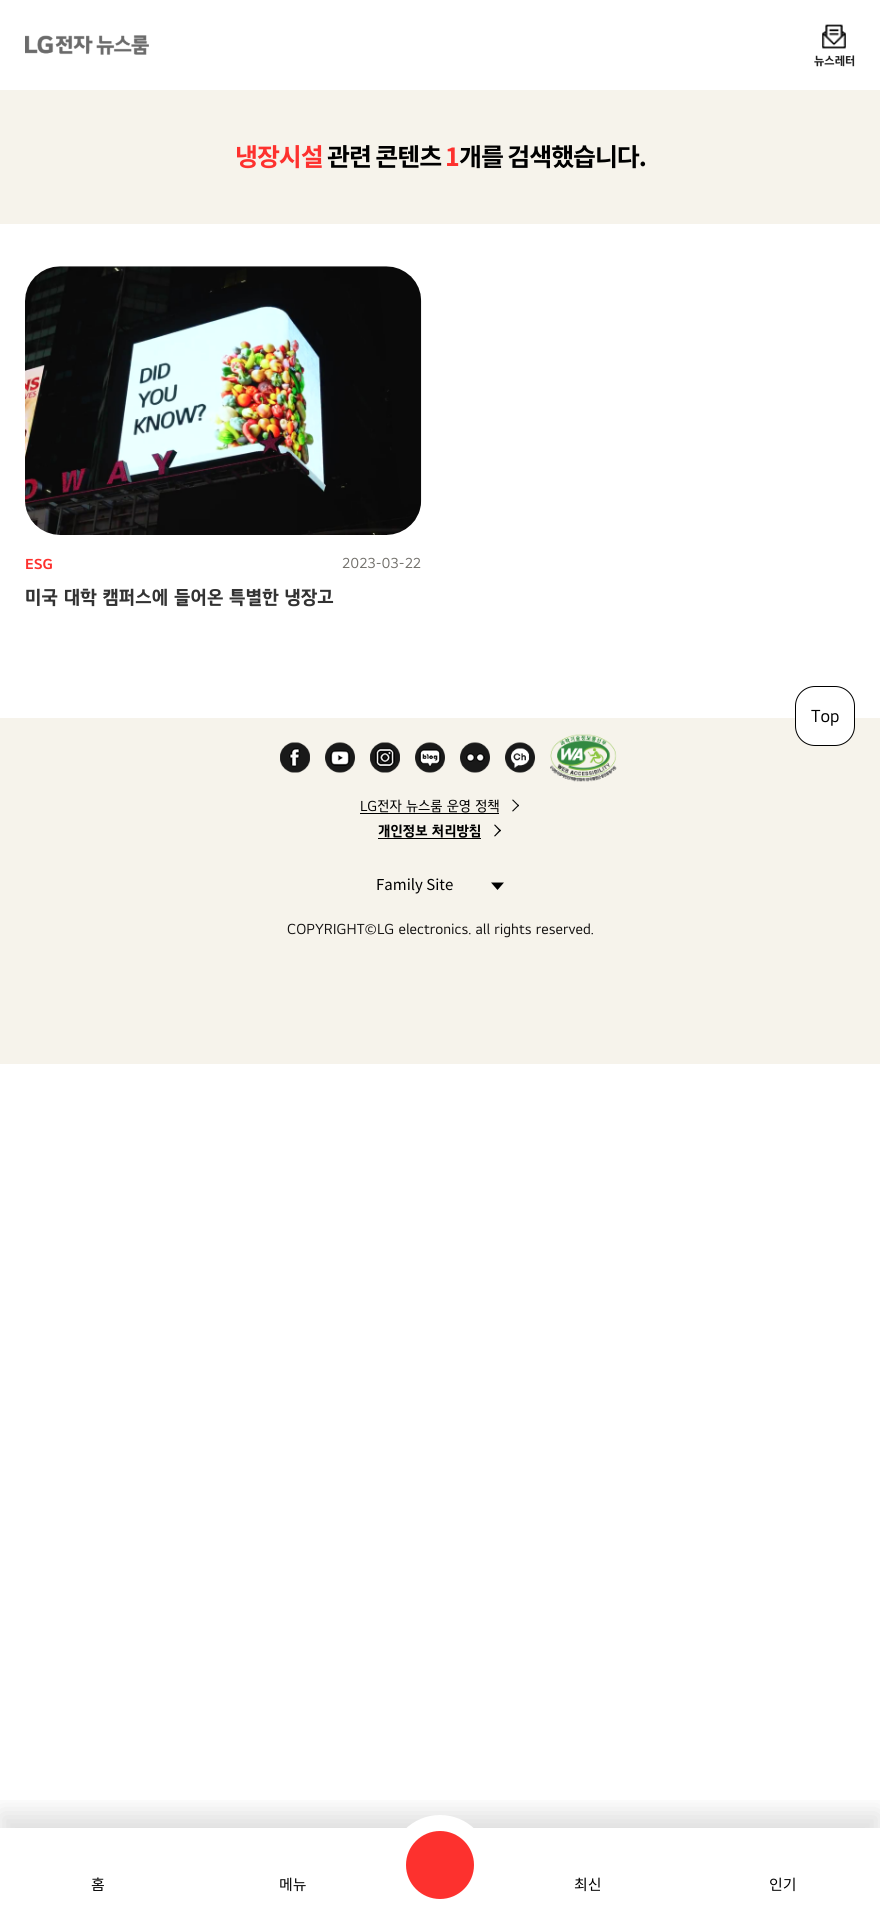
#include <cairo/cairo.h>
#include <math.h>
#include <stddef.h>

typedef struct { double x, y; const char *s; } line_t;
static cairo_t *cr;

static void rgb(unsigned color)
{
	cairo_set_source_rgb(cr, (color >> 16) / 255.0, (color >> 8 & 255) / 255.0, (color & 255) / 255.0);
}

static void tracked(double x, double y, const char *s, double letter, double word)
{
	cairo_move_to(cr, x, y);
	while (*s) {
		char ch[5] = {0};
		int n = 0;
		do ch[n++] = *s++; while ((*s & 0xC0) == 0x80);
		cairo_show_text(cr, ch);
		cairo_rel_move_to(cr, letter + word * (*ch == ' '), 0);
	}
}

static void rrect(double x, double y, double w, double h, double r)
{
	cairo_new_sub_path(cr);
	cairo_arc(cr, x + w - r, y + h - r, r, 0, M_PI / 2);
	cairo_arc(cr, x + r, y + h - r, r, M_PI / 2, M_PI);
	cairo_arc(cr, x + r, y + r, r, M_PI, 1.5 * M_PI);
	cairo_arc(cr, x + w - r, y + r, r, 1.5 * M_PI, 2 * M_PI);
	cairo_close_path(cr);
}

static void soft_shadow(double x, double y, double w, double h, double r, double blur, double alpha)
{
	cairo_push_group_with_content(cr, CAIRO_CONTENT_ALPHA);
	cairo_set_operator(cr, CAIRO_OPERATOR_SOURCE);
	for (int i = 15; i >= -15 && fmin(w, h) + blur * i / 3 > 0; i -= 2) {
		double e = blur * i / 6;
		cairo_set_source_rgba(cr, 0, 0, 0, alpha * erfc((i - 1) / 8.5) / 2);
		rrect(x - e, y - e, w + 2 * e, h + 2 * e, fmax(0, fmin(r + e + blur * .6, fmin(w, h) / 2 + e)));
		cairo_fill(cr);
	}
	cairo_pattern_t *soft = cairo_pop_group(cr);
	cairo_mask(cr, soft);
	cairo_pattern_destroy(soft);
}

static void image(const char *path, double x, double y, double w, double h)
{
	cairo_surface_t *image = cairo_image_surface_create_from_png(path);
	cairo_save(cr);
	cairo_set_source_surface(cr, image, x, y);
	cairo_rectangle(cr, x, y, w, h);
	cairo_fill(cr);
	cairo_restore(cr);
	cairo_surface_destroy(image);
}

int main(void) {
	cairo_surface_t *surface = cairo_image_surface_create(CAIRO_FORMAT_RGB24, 880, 1915);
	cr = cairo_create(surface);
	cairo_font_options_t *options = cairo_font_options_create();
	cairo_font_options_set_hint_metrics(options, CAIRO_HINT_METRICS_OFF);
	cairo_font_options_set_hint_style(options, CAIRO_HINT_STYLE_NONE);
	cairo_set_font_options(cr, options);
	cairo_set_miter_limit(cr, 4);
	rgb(0xffffff);
	cairo_paint(cr);
	image("img/1.png", 25, 35, 124, 20);
	image("img/2.png", 822, 24, 24, 25);
	rgb(0xf6f3eb);
	cairo_rectangle(cr, 0, 90, 880, 134);
	cairo_fill(cr);
	rgb(0xf4f4f4);
	rrect(25, 266, 396, 269, 35);
	cairo_fill(cr);
	image("img/3.png", 413, 503, 8, 19);
	image("img/4.png", 25, 266, 397, 269);
	rgb(0xf6f3eb);
	cairo_rectangle(cr, 0, 718, 880, 346);
	cairo_fill(cr);
	rgb(0xffffff);
	rrect(795.5, 686.5, 59, 59, 19.5);
	cairo_fill_preserve(cr);
	rgb(0x000000);
	cairo_set_line_width(cr, 1);
	cairo_stroke(cr);
	image("img/5.png", 280, 742, 30, 31);
	image("img/6.png", 325, 742, 30, 31);
	image("img/7.png", 370, 742, 30, 31);
	image("img/8.png", 415, 742, 30, 31);
	image("img/9.png", 460, 742, 30, 31);
	image("img/10.png", 505, 742, 30, 31);
	image("img/11.png", 550, 734, 67, 48);
	cairo_rectangle(cr, 360, 813, 139, 1);
	cairo_fill(cr);
	cairo_new_path(cr);
	cairo_move_to(cr, 513, 799.5);
	cairo_line_to(cr, 519, 805.5);
	cairo_line_to(cr, 518.5, 806.5);
	cairo_line_to(cr, 512, 800);
	cairo_close_path(cr);
	cairo_fill(cr);
	cairo_new_path(cr);
	cairo_move_to(cr, 518.5, 804.5);
	cairo_line_to(cr, 519, 805.5);
	cairo_line_to(cr, 513, 811.5);
	cairo_line_to(cr, 512, 811);
	cairo_close_path(cr);
	cairo_move_to(cr, 495, 824.5);
	cairo_line_to(cr, 501, 830.5);
	cairo_line_to(cr, 500, 831.5);
	cairo_line_to(cr, 494, 825);
	cairo_close_path(cr);
	cairo_fill(cr);
	cairo_rectangle(cr, 378, 838, 103, 1);
	cairo_fill(cr);
	cairo_new_path(cr);
	cairo_move_to(cr, 500, 829.5);
	cairo_line_to(cr, 501, 830.5);
	cairo_line_to(cr, 495, 836.5);
	cairo_line_to(cr, 494, 836);
	cairo_close_path(cr);
	cairo_fill(cr);
	cairo_new_path(cr);
	cairo_move_to(cr, 491, 882.5);
	cairo_line_to(cr, 504, 882.5);
	cairo_line_to(cr, 497.5, 890);
	cairo_close_path(cr);
	cairo_fill(cr);
	cairo_save(cr);
	cairo_rectangle(cr, 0, 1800, 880, 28);
	cairo_clip(cr);
	rgb(0x000000);
	soft_shadow(0, 1813, 880, 87, 0, 12.5, 0.13);
	cairo_restore(cr);
	rgb(0xffffff);
	cairo_arc(cr, 440, 1865, 50, 0, 2 * M_PI);
	cairo_fill(cr);
	rgb(0xfd312e);
	cairo_arc(cr, 440, 1865, 34, 0, 2 * M_PI);
	cairo_fill(cr);
	cairo_select_font_face(cr, "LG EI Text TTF", CAIRO_FONT_SLANT_NORMAL, CAIRO_FONT_WEIGHT_BOLD);
	cairo_set_font_size(cr, 12.5);
	rgb(0x222222);
	cairo_move_to(cr, 814, 65);
	cairo_show_text(cr, "뉴스레터");
	cairo_select_font_face(cr, "Noto Sans KR", CAIRO_FONT_SLANT_NORMAL, CAIRO_FONT_WEIGHT_BOLD);
	cairo_set_font_size(cr, 25);
	rgb(0xfd312e);
	tracked(235, 166, "냉장시설", -1.1, 0);
	rgb(0x000000);
	tracked(327, 166, "관련 콘텐츠", -1.1, 0);
	rgb(0xfd312e);
	tracked(445, 166, "1", -1.1, 0);
	rgb(0x000000);
	tracked(459, 166, "개를 검색했습니다.", -1.1, 0);
	cairo_select_font_face(cr, "LG EI Text TTF", CAIRO_FONT_SLANT_NORMAL, CAIRO_FONT_WEIGHT_BOLD);
	cairo_set_font_size(cr, 15);
	rgb(0xfd312e);
	cairo_move_to(cr, 25, 569);
	cairo_show_text(cr, "ESG");
	cairo_select_font_face(cr, "LG EI Text TTF", CAIRO_FONT_SLANT_NORMAL, CAIRO_FONT_WEIGHT_NORMAL);
	rgb(0x716f6a);
	cairo_move_to(cr, 342, 568);
	cairo_show_text(cr, "2023-03-22");
	cairo_select_font_face(cr, "LG EI Text TTF", CAIRO_FONT_SLANT_NORMAL, CAIRO_FONT_WEIGHT_BOLD);
	cairo_set_font_size(cr, 20);
	rgb(0x333333);
	cairo_move_to(cr, 25, 604);
	cairo_show_text(cr, "미국 대학 캠퍼스에 들어온 특별한 냉장고");
	cairo_select_font_face(cr, "LG EI Text TTF", CAIRO_FONT_SLANT_NORMAL, CAIRO_FONT_WEIGHT_NORMAL);
	cairo_set_font_size(cr, 18);
	rgb(0x000000);
	cairo_move_to(cr, 811, 722);
	cairo_show_text(cr, "Top");
	cairo_set_font_size(cr, 15);
	cairo_move_to(cr, 360, 811);
	cairo_show_text(cr, "LG전자 뉴스룸 운영 정책");
	cairo_select_font_face(cr, "LG EI Text TTF", CAIRO_FONT_SLANT_NORMAL, CAIRO_FONT_WEIGHT_BOLD);
	cairo_move_to(cr, 378, 836);
	cairo_show_text(cr, "개인정보 처리방침");
	cairo_select_font_face(cr, "Noto Sans KR", CAIRO_FONT_SLANT_NORMAL, CAIRO_FONT_WEIGHT_NORMAL);
	cairo_move_to(cr, 376, 890);
	cairo_show_text(cr, "Family Site");
	cairo_select_font_face(cr, "LG EI Text TTF", CAIRO_FONT_SLANT_NORMAL, CAIRO_FONT_WEIGHT_NORMAL);
	rgb(0x131111);
	cairo_move_to(cr, 287, 934);
	cairo_show_text(cr, "COPYRIGHT©LG electronics. all rights reserved.");
	cairo_select_font_face(cr, "Noto Sans KR", CAIRO_FONT_SLANT_NORMAL, CAIRO_FONT_WEIGHT_NORMAL);
	rgb(0x000000);
	{
		static const line_t items[] = {
			{91, 1890, "홈"},
			{279, 1890, "메뉴"},
			{574, 1890, "최신"},
			{769, 1890, "인기"},
		};
		for (size_t i = 0; i < sizeof items / sizeof *items; i++) {
			cairo_move_to(cr, items[i].x, items[i].y);
			cairo_show_text(cr, items[i].s);
		}
	}
	cairo_surface_write_to_png(surface, "page.png");
	cairo_font_options_destroy(options);
	cairo_destroy(cr);
	cairo_surface_destroy(surface);
	return 0;
}
